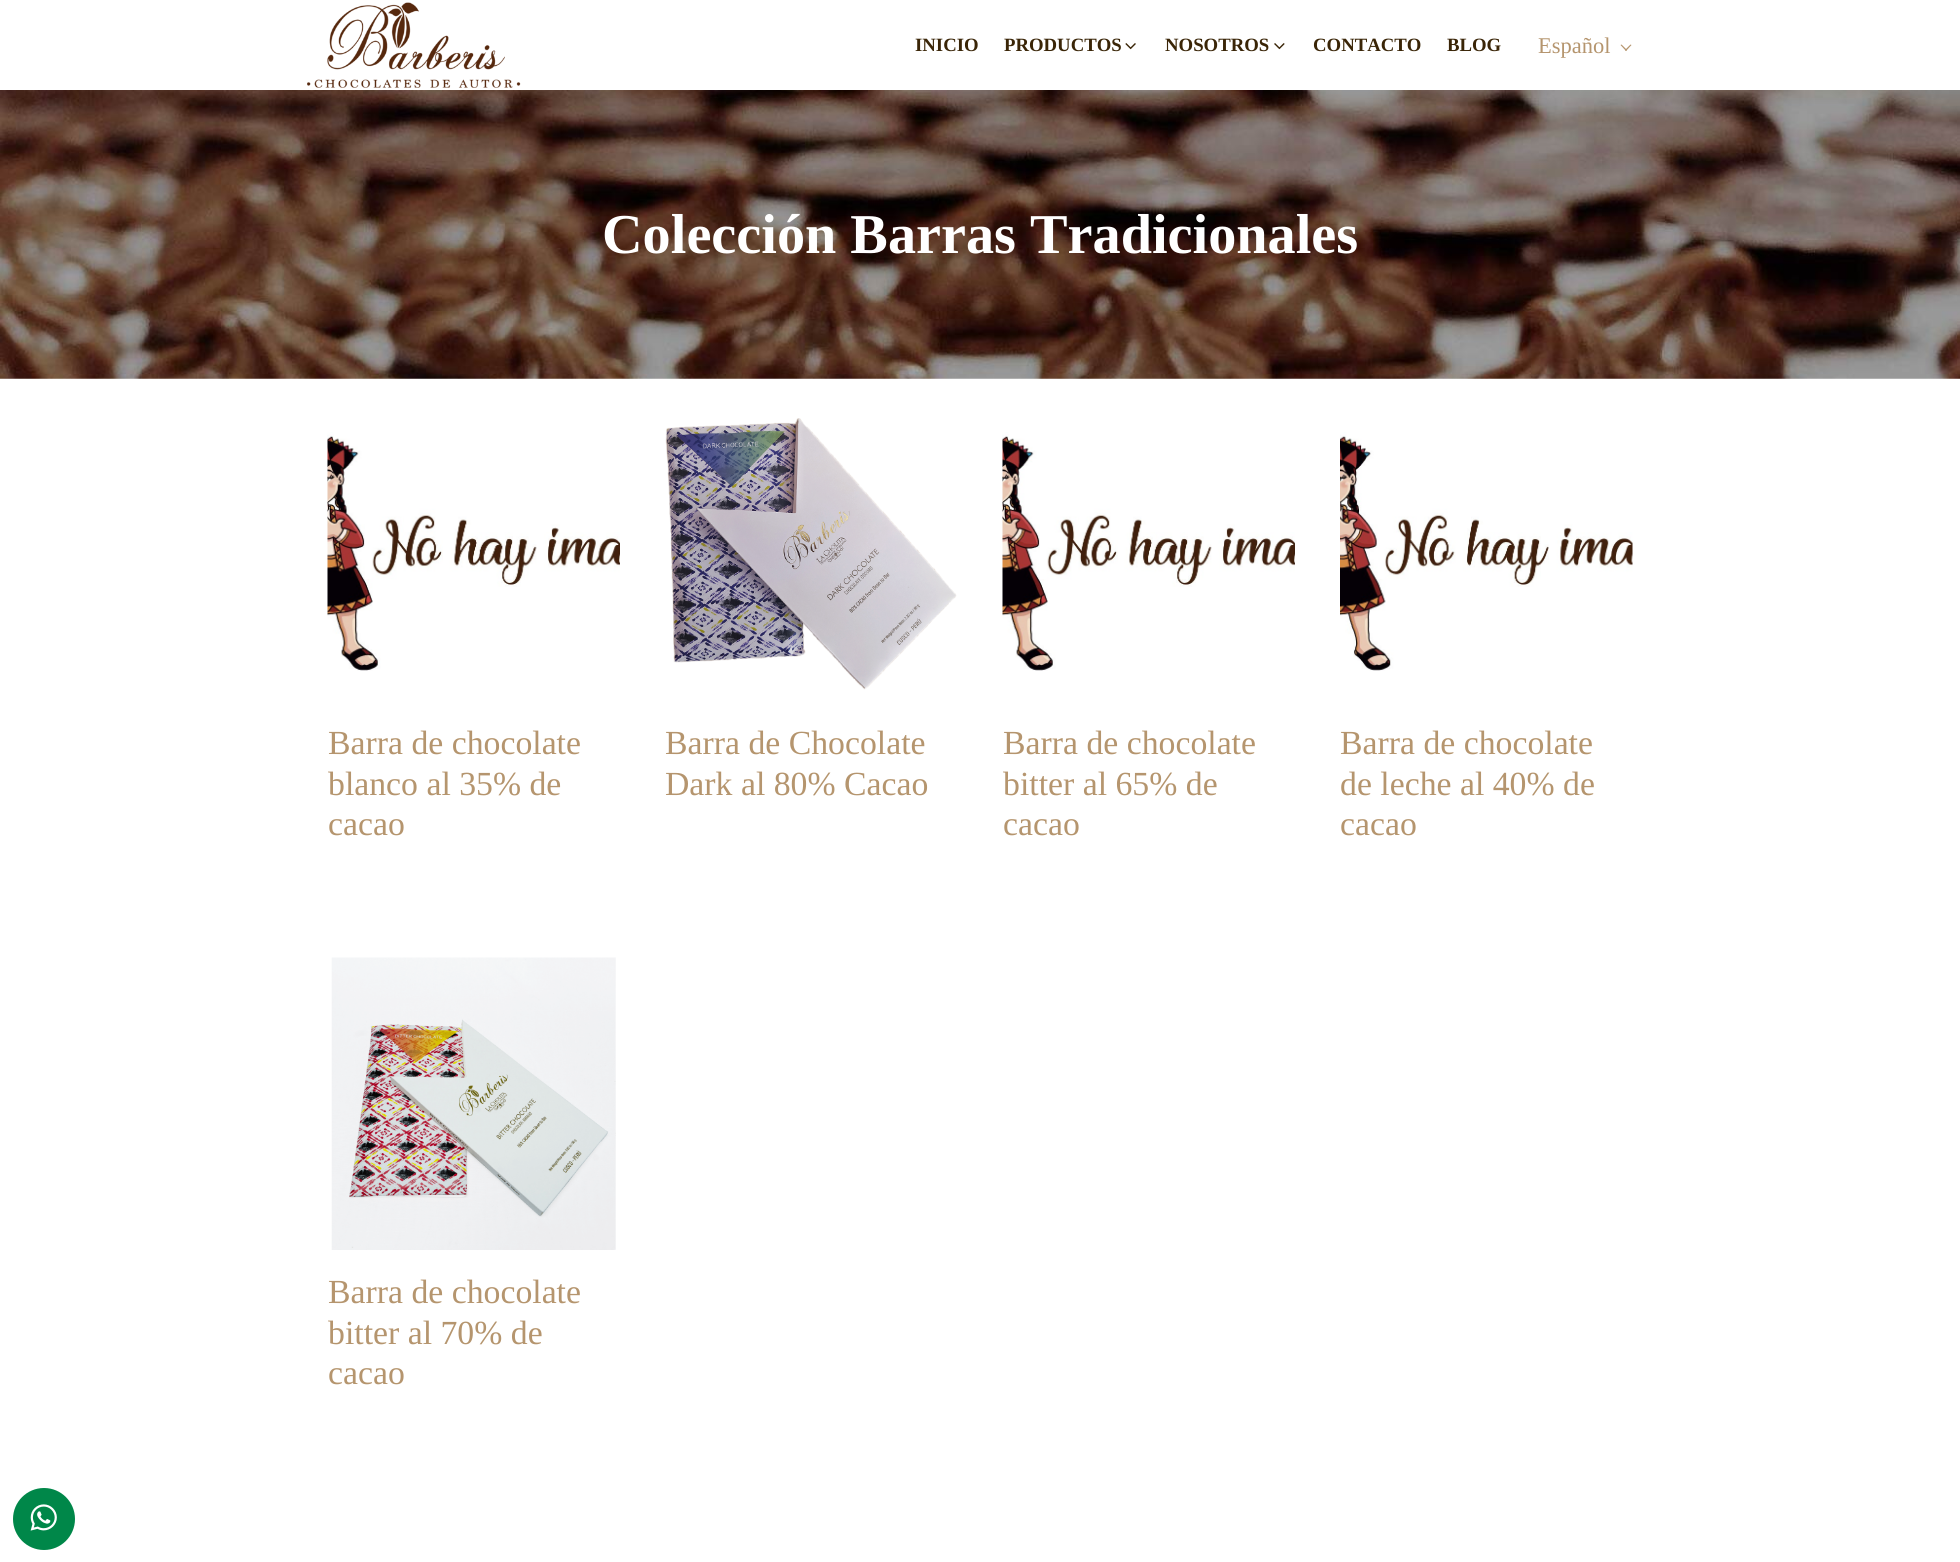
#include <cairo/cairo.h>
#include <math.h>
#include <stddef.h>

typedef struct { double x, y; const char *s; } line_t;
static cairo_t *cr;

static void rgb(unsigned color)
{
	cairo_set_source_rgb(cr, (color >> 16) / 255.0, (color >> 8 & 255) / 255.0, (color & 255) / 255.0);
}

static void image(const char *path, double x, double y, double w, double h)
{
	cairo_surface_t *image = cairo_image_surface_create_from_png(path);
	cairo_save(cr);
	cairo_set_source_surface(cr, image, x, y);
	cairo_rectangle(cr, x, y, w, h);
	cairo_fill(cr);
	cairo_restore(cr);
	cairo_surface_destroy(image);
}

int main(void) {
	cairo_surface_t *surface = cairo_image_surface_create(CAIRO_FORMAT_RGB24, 1960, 1562);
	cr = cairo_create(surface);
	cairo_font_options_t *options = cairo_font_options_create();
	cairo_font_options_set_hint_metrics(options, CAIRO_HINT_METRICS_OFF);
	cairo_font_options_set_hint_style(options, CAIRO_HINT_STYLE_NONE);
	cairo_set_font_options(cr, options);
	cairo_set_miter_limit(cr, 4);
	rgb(0xffffff);
	cairo_paint(cr);
	image("img/1.png", 307, 2, 214, 86);
	image("img/2.png", 1125, 43, 11, 7);
	image("img/3.png", 1274, 43, 11, 7);
	rgb(0xb5956e);
	cairo_new_path(cr);
	cairo_move_to(cr, 1631.5, 45);
	cairo_line_to(cr, 1626, 51);
	cairo_line_to(cr, 1625, 50);
	cairo_line_to(cr, 1630.5, 44.5);
	cairo_close_path(cr);
	cairo_fill(cr);
	cairo_new_path(cr);
	cairo_move_to(cr, 1627, 50);
	cairo_line_to(cr, 1626, 51);
	cairo_line_to(cr, 1620.5, 45);
	cairo_line_to(cr, 1621.5, 44.5);
	cairo_close_path(cr);
	cairo_fill(cr);
	image("img/4.png", 0, 90, 1960, 289);
	image("img/5.png", 327, 432, 293, 239);
	image("img/6.png", 665, 418, 292, 272);
	image("img/7.png", 1002, 432, 293, 239);
	image("img/8.png", 1340, 432, 293, 239);
	image("img/9.png", 331, 957, 285, 293);
	rgb(0x008749);
	cairo_arc(cr, 44, 1519, 31, 0, 2 * M_PI);
	cairo_fill(cr);
	image("img/10.png", 30, 1504, 27, 27);
	cairo_select_font_face(cr, "Liberation Serif", CAIRO_FONT_SLANT_NORMAL, CAIRO_FONT_WEIGHT_BOLD);
	cairo_set_font_size(cr, 18.75);
	rgb(0x3a2507);
	{
		static const line_t items[] = {
			{915, 51, "INICIO"},
			{1004, 51, "PRODUCTOS"},
			{1165, 51, "NOSOTROS"},
			{1313, 51, "CONTACTO"},
			{1447, 51, "BLOG"},
		};
		for (size_t i = 0; i < sizeof items / sizeof *items; i++) {
			cairo_move_to(cr, items[i].x, items[i].y);
			cairo_show_text(cr, items[i].s);
		}
	}
	cairo_select_font_face(cr, "Liberation Serif", CAIRO_FONT_SLANT_NORMAL, CAIRO_FONT_WEIGHT_NORMAL);
	cairo_set_font_size(cr, 22.5);
	rgb(0xb5956e);
	cairo_move_to(cr, 1538, 53);
	cairo_show_text(cr, "Español");
	cairo_select_font_face(cr, "Liberation Serif", CAIRO_FONT_SLANT_NORMAL, CAIRO_FONT_WEIGHT_BOLD);
	cairo_set_font_size(cr, 56.25);
	rgb(0xffffff);
	cairo_move_to(cr, 602, 253);
	cairo_show_text(cr, "Colección Barras Tradicionales");
	cairo_select_font_face(cr, "Liberation Serif", CAIRO_FONT_SLANT_NORMAL, CAIRO_FONT_WEIGHT_NORMAL);
	cairo_set_font_size(cr, 33.75);
	rgb(0xb5956e);
	{
		static const line_t items[] = {
			{328, 754, "Barra de chocolate"},
			{328, 795, "blanco al 35% de"},
			{328, 835, "cacao"},
			{665, 754, "Barra de Chocolate"},
			{665, 795, "Dark al 80% Cacao"},
			{1003, 754, "Barra de chocolate"},
			{1003, 795, "bitter al 65% de"},
			{1003, 835, "cacao"},
			{1340, 754, "Barra de chocolate"},
			{1340, 795, "de leche al 40% de"},
			{1340, 835, "cacao"},
			{328, 1303, "Barra de chocolate"},
			{328, 1344, "bitter al 70% de"},
			{328, 1384, "cacao"},
		};
		for (size_t i = 0; i < sizeof items / sizeof *items; i++) {
			cairo_move_to(cr, items[i].x, items[i].y);
			cairo_show_text(cr, items[i].s);
		}
	}
	cairo_surface_write_to_png(surface, "page.png");
	cairo_font_options_destroy(options);
	cairo_destroy(cr);
	cairo_surface_destroy(surface);
	return 0;
}
